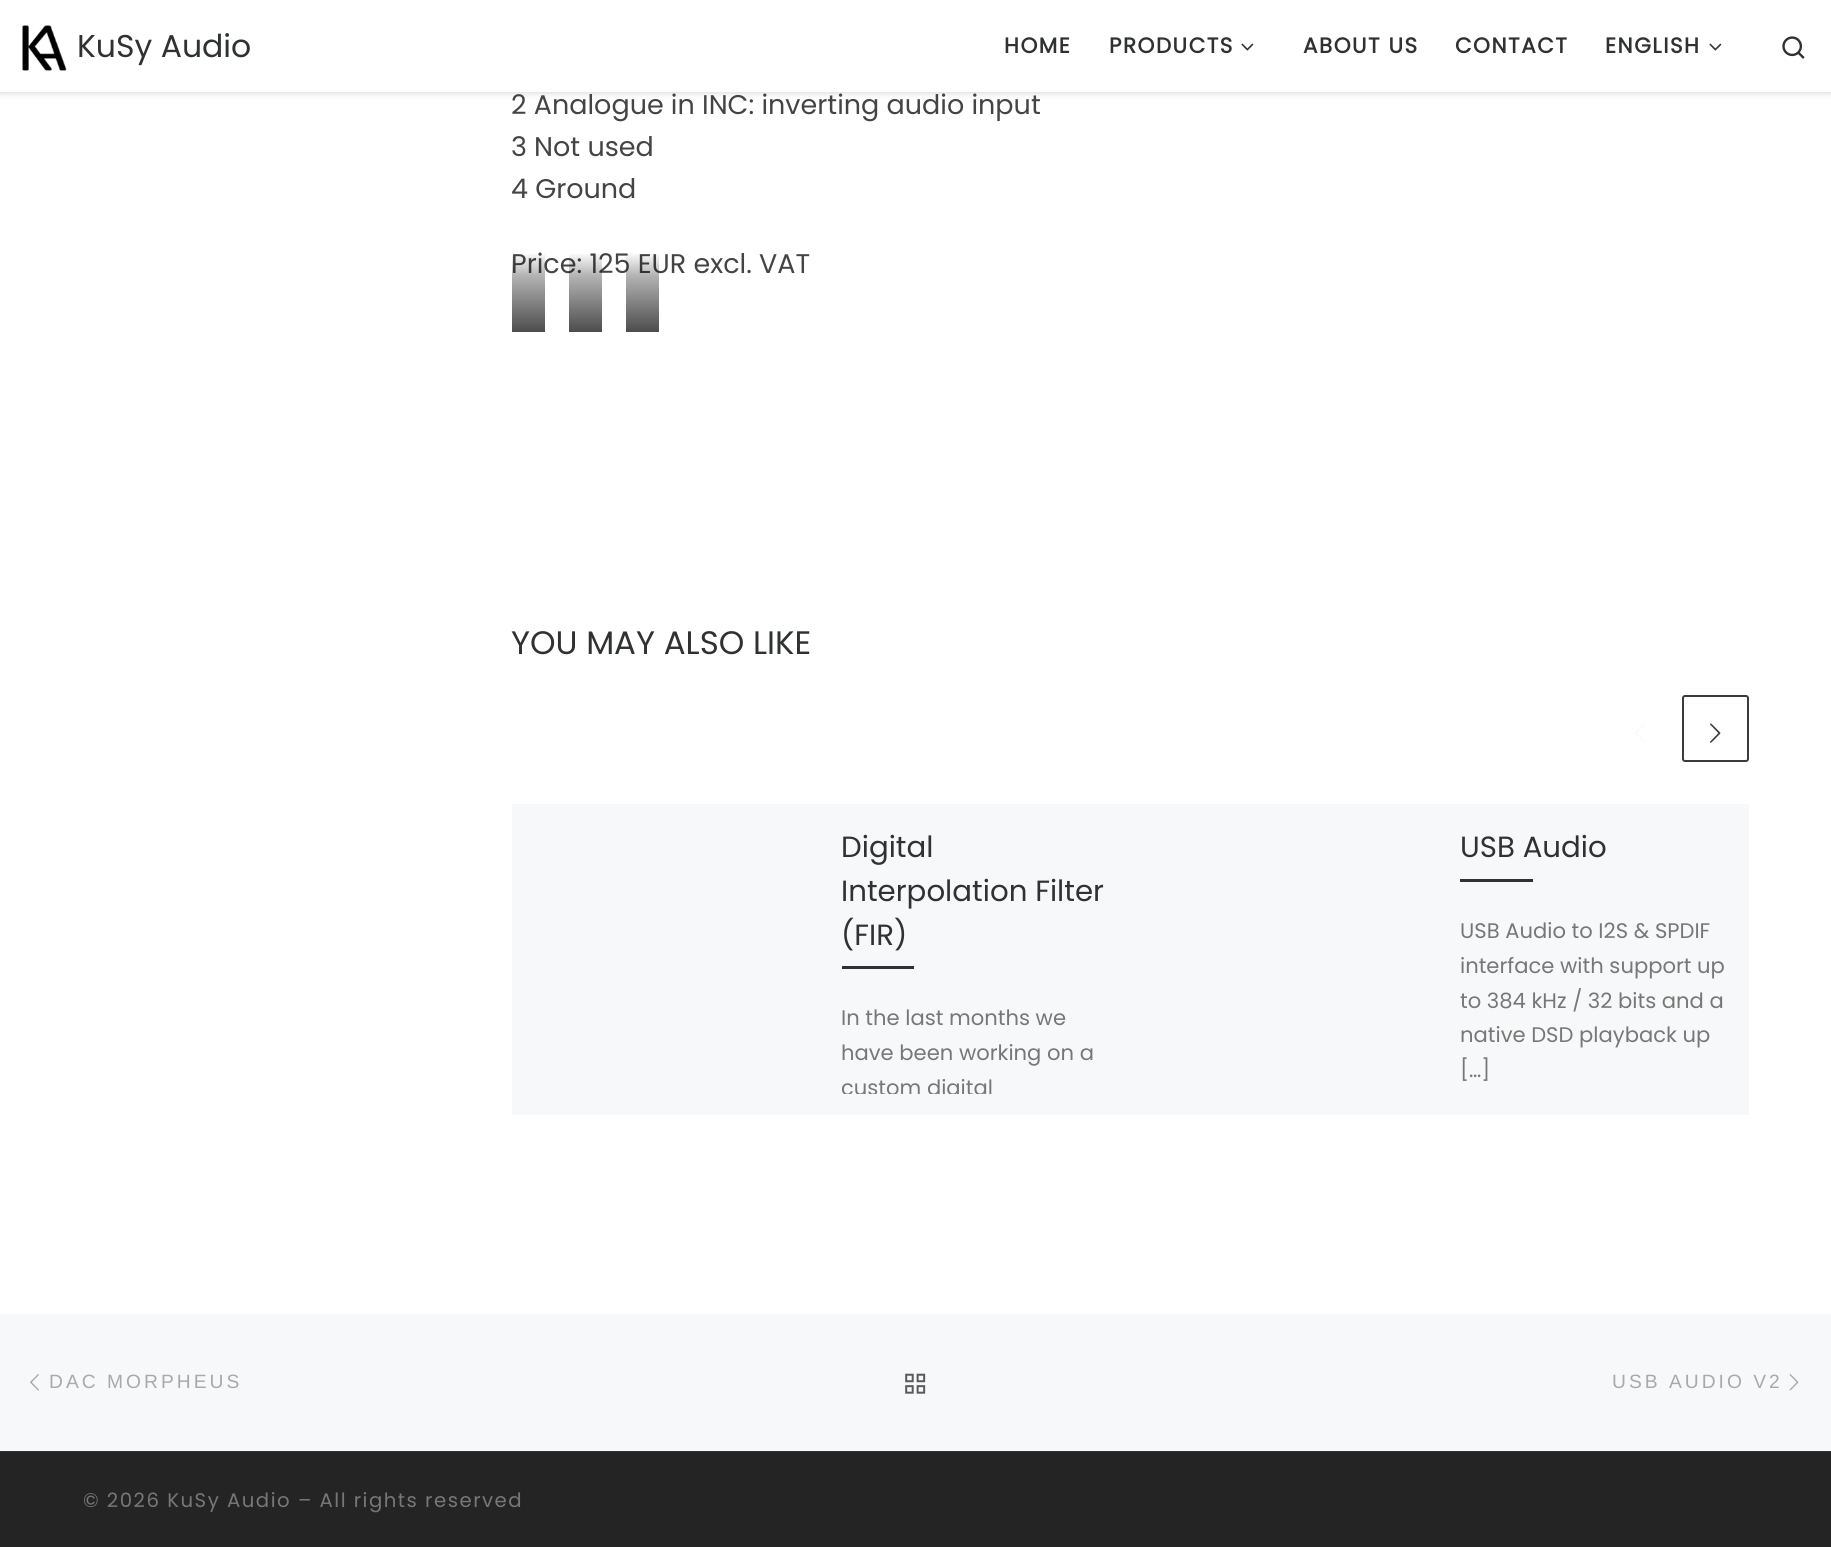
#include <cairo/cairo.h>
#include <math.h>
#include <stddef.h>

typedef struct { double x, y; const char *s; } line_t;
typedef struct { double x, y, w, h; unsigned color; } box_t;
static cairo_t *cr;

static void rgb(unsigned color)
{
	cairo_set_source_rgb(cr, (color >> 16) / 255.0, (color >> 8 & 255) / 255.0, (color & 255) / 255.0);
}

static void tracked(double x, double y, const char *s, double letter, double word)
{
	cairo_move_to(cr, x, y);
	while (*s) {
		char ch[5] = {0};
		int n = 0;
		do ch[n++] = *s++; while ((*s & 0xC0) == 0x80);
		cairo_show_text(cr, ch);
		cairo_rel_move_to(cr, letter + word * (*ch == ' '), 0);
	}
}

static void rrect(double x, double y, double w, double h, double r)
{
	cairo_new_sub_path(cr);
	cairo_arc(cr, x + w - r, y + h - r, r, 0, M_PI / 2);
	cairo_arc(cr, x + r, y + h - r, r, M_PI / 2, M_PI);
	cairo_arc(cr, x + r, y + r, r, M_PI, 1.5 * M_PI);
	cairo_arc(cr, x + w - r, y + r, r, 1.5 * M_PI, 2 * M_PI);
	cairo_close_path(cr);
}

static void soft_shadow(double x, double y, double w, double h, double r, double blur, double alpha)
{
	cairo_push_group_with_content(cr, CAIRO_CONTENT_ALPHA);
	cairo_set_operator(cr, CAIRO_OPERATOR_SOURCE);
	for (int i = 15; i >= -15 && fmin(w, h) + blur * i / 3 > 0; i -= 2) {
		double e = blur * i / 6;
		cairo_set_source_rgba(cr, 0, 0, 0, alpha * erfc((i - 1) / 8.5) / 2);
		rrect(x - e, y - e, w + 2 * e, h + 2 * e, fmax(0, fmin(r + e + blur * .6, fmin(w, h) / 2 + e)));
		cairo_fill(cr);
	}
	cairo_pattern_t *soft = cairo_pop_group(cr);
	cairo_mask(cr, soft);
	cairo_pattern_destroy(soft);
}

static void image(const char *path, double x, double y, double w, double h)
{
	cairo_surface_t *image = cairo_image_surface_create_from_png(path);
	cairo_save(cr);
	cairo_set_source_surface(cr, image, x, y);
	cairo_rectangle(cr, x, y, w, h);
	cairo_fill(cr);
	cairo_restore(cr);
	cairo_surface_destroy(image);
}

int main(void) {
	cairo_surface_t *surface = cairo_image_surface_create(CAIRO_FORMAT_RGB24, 1831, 1547);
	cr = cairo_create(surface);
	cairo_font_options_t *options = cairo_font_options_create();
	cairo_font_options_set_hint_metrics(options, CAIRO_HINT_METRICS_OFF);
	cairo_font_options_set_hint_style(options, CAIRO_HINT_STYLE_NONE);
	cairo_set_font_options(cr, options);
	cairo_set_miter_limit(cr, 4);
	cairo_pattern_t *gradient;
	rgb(0xffffff);
	cairo_paint(cr);
	cairo_save(cr);
	cairo_set_fill_rule(cr, CAIRO_FILL_RULE_EVEN_ODD);
	cairo_new_path(cr);
	cairo_move_to(cr, 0, 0);
	cairo_line_to(cr, 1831, 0);
	cairo_line_to(cr, 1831, 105);
	cairo_line_to(cr, 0, 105);
	cairo_close_path(cr);
	cairo_move_to(cr, 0, 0);
	cairo_line_to(cr, 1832, 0);
	cairo_line_to(cr, 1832, 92);
	cairo_line_to(cr, 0, 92);
	cairo_close_path(cr);
	cairo_clip(cr);
	rgb(0x000000);
	soft_shadow(0, 0, 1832, 92, 0, 4, 0.2);
	cairo_restore(cr);
	cairo_set_source_rgba(cr, 1, 1, 1, 0.9);
	cairo_rectangle(cr, 0, 91, 1831, 1);
	cairo_fill(cr);
	image("img/1.png", 22, 25, 45, 46);
	image("img/2.png", 1241, 43, 13, 8);
	image("img/2.png", 1709, 43, 13, 8);
	image("img/3.png", 1782, 36, 23, 23);
	image("img/4.png", 1635, 724, 10, 18);
	rrect(1683, 696, 65, 65, 2);
	rgb(0x3b3b3b);
	cairo_stroke(cr);
	image("img/5.png", 1710, 723, 11, 20);
	{
		static const box_t items[] = {
			{512, 804, 1237, 311, 0xf7f8f9},
			{842, 966, 72, 3, 0x313131},
			{1460, 879, 73, 3, 0x313131},
			{0, 1314, 1831, 137, 0xf7f8f9},
		};
		for (size_t i = 0; i < sizeof items / sizeof *items; i++) {
			rgb(items[i].color);
			cairo_rectangle(cr, items[i].x, items[i].y, items[i].w, items[i].h);
			cairo_fill(cr);
		}
	}
	image("img/6.png", 30, 1374, 9, 17);
	image("img/7.png", 905, 1373, 21, 21);
	image("img/8.png", 1789, 1374, 10, 17);
	rgb(0x313131);
	cairo_rectangle(cr, 0, 1451, 1831, 1);
	cairo_fill(cr);
	rgb(0x242424);
	cairo_rectangle(cr, 0, 1452, 1831, 95);
	cairo_fill(cr);
	cairo_select_font_face(cr, "Poppins", CAIRO_FONT_SLANT_NORMAL, CAIRO_FONT_WEIGHT_NORMAL);
	cairo_set_font_size(cr, 31.5);
	rgb(0x303133);
	cairo_move_to(cr, 77, 57);
	cairo_show_text(cr, "KuSy Audio");
	cairo_select_font_face(cr, "Poppins", CAIRO_FONT_SLANT_NORMAL, CAIRO_FONT_WEIGHT_BOLD);
	cairo_set_font_size(cr, 21.5);
	{
		static const line_t items[] = {
			{1004, 53, "HOME"},
			{1109, 53, "PRODUCTS"},
			{1303, 53, "ABOUT US"},
			{1455, 53, "CONTACT"},
			{1605, 53, "ENGLISH"},
		};
		for (size_t i = 0; i < sizeof items / sizeof *items; i++) {
			tracked(items[i].x, items[i].y, items[i].s, 1.5, 0);
		}
	}
	cairo_select_font_face(cr, "Poppins", CAIRO_FONT_SLANT_NORMAL, CAIRO_FONT_WEIGHT_NORMAL);
	cairo_set_font_size(cr, 27);
	rgb(0x444444);
	{
		static const line_t items[] = {
			{511, 114, "2 Analogue in INC: inverting audio input"},
			{511, 156, "3 Not used"},
			{511, 198, "4 Ground"},
			{511, 273, "Price: 125 EUR excl. VAT"},
		};
		for (size_t i = 0; i < sizeof items / sizeof *items; i++) {
			cairo_move_to(cr, items[i].x, items[i].y);
			cairo_show_text(cr, items[i].s);
		}
	}
	gradient = cairo_pattern_create_linear(528, 332, 528, 252);
	cairo_pattern_add_color_stop_rgba(gradient, 0, 0, 0, 0, 0.7);
	cairo_pattern_add_color_stop_rgba(gradient, 0.7, 0, 0, 0, 0.3);
	cairo_pattern_add_color_stop_rgba(gradient, 1, 0, 0, 0, 0);
	cairo_set_source(cr, gradient);
	cairo_pattern_destroy(gradient);
	cairo_rectangle(cr, 512, 254, 33, 78);
	cairo_fill(cr);
	gradient = cairo_pattern_create_linear(585, 332, 585, 252);
	cairo_pattern_add_color_stop_rgba(gradient, 0, 0, 0, 0, 0.7);
	cairo_pattern_add_color_stop_rgba(gradient, 0.7, 0, 0, 0, 0.3);
	cairo_pattern_add_color_stop_rgba(gradient, 1, 0, 0, 0, 0);
	cairo_set_source(cr, gradient);
	cairo_pattern_destroy(gradient);
	cairo_rectangle(cr, 569, 254, 33, 78);
	cairo_fill(cr);
	gradient = cairo_pattern_create_linear(642, 332, 642, 252);
	cairo_pattern_add_color_stop_rgba(gradient, 0, 0, 0, 0, 0.7);
	cairo_pattern_add_color_stop_rgba(gradient, 0.7, 0, 0, 0, 0.3);
	cairo_pattern_add_color_stop_rgba(gradient, 1, 0, 0, 0, 0);
	cairo_set_source(cr, gradient);
	cairo_pattern_destroy(gradient);
	cairo_rectangle(cr, 626, 254, 33, 78);
	cairo_fill(cr);
	cairo_set_font_size(cr, 32.5);
	rgb(0x303133);
	cairo_move_to(cr, 511, 654);
	cairo_show_text(cr, "YOU MAY ALSO LIKE");
	cairo_set_font_size(cr, 29.25);
	{
		static const line_t items[] = {
			{841, 857, "Digital"},
			{841, 901, "Interpolation Filter"},
			{841, 945, "(FIR)"},
		};
		for (size_t i = 0; i < sizeof items / sizeof *items; i++) {
			cairo_move_to(cr, items[i].x, items[i].y);
			cairo_show_text(cr, items[i].s);
		}
	}
	cairo_set_font_size(cr, 21.1);
	rgb(0x777777);
	cairo_move_to(cr, 841, 1025);
	cairo_show_text(cr, "In the last months we");
	cairo_move_to(cr, 841, 1060);
	cairo_show_text(cr, "have been working on a");
	cairo_save(cr);
	cairo_rectangle(cr, 842, 825, 267, 269);
	cairo_clip(cr);
	cairo_move_to(cr, 841, 1095);
	cairo_show_text(cr, "custom digital");
	cairo_restore(cr);
	cairo_set_font_size(cr, 29.25);
	rgb(0x303133);
	cairo_move_to(cr, 1460, 857);
	cairo_show_text(cr, "USB Audio");
	cairo_set_font_size(cr, 21.1);
	rgb(0x777777);
	{
		static const line_t items[] = {
			{1460, 938, "USB Audio to I2S & SPDIF"},
			{1460, 973, "interface with support up"},
			{1460, 1008, "to 384 kHz / 32 bits and a"},
			{1460, 1042, "native DSD playback up"},
			{1460, 1077, "[…]"},
		};
		for (size_t i = 0; i < sizeof items / sizeof *items; i++) {
			cairo_move_to(cr, items[i].x, items[i].y);
			cairo_show_text(cr, items[i].s);
		}
	}
	cairo_select_font_face(cr, "Liberation Sans", CAIRO_FONT_SLANT_NORMAL, CAIRO_FONT_WEIGHT_NORMAL);
	cairo_set_font_size(cr, 19.25);
	rgb(0xa9a9aa);
	tracked(49, 1388, "DAC MORPHEUS", 3, 0);
	tracked(1612, 1388, "USB AUDIO V2", 3, 0);
	cairo_select_font_face(cr, "Poppins", CAIRO_FONT_SLANT_NORMAL, CAIRO_FONT_WEIGHT_NORMAL);
	cairo_set_font_size(cr, 19.7);
	rgb(0x777777);
	tracked(83, 1507, "© 2026 KuSy Audio – All rights reserved", 1.5, 0);
	cairo_surface_write_to_png(surface, "page.png");
	cairo_font_options_destroy(options);
	cairo_destroy(cr);
	cairo_surface_destroy(surface);
	return 0;
}
